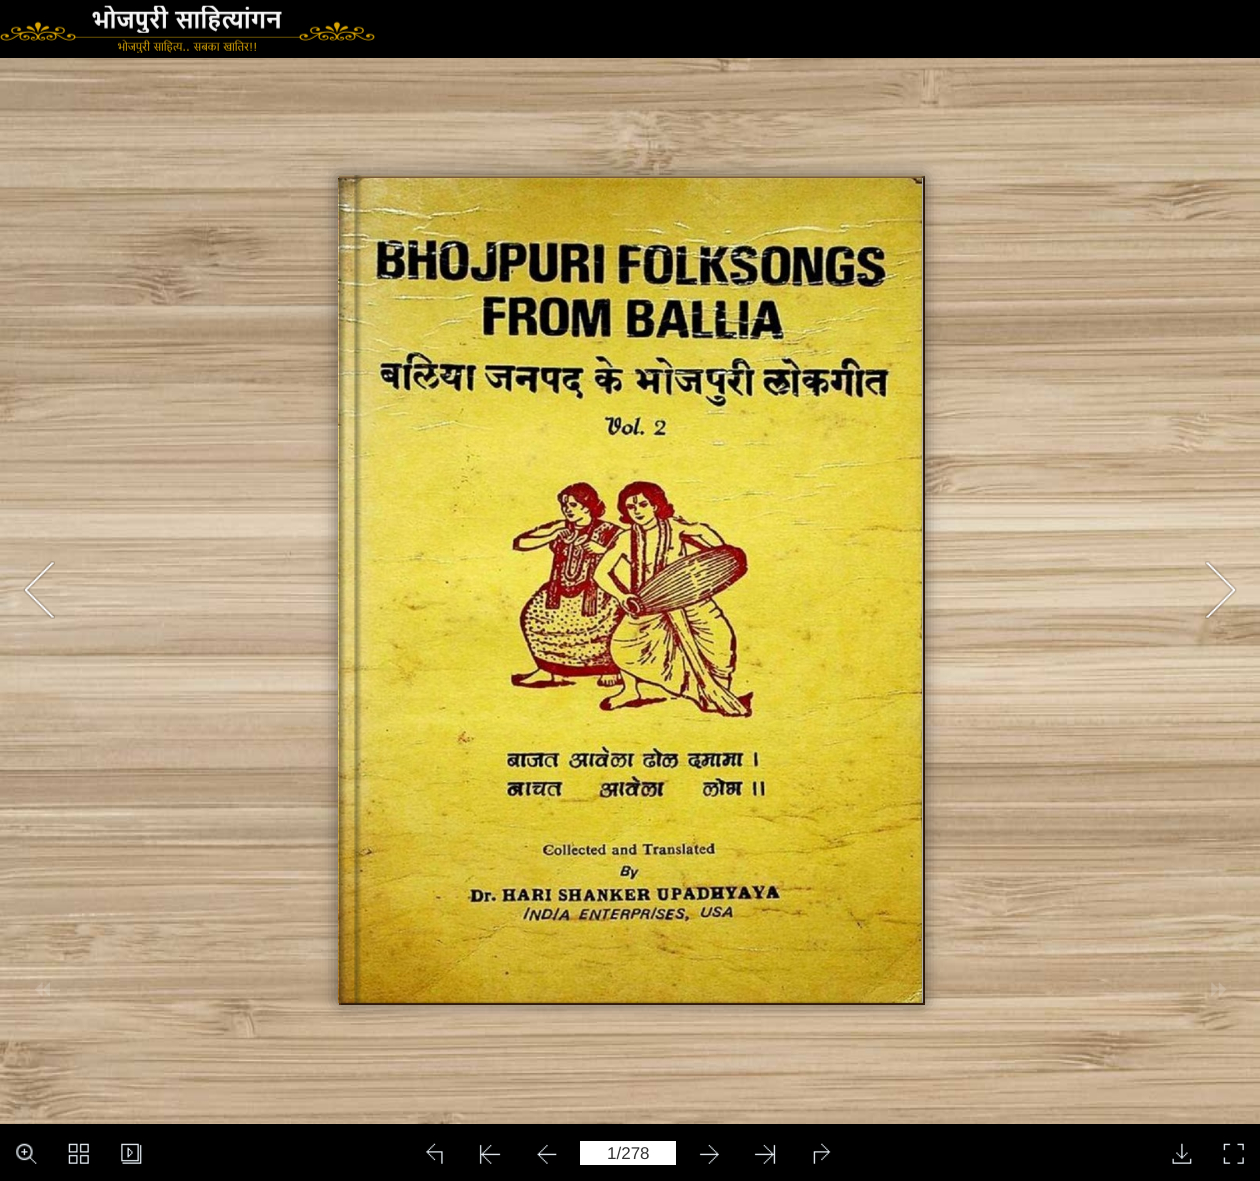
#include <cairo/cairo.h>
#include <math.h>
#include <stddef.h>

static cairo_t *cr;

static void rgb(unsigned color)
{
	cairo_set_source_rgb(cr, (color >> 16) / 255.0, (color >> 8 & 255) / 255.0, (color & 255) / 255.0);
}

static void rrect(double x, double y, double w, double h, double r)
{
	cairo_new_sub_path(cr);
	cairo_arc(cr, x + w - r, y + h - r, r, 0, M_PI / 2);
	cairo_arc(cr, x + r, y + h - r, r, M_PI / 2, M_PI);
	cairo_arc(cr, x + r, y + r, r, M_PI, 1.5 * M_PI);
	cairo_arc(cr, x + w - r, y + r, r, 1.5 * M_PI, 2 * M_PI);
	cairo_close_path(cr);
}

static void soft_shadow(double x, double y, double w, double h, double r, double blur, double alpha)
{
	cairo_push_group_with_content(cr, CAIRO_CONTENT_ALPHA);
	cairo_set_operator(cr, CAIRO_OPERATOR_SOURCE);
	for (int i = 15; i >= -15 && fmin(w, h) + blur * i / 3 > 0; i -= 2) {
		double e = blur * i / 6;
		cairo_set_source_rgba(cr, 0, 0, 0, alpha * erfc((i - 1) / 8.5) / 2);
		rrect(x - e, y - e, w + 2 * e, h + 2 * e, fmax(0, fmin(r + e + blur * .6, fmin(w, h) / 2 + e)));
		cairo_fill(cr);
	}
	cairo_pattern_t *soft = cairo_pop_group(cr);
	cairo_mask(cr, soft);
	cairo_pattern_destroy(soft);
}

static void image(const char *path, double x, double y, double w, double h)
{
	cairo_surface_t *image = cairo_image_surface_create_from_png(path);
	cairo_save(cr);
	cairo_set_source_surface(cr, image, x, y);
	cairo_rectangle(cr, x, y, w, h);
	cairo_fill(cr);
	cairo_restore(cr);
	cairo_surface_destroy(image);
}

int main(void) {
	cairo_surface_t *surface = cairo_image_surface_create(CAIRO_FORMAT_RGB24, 1260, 1181);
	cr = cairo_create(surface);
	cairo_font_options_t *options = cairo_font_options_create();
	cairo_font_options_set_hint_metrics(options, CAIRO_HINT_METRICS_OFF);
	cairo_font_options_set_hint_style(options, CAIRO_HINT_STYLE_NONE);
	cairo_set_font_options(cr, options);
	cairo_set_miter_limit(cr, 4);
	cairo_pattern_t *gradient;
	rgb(0xffffff);
	cairo_paint(cr);
	rgb(0x000000);
	cairo_rectangle(cr, 0, 0, 1260, 58);
	cairo_fill(cr);
	image("img/1.png", 0, 5, 375, 48);
	image("img/2.png", 0, 58, 1260, 1066);
	image("img/3.png", 23, 561, 32, 58);
	rgb(0x282828);
	soft_shadow(339, 178, 584, 825, 0, 9.5, 0.7);
	rgb(0x572f0d);
	cairo_rectangle(cr, 339, 175, 586, 830);
	cairo_fill(cr);
	rgb(0xe8e8e8);
	cairo_rectangle(cr, 922, 178, 1, 825);
	cairo_fill(cr);
	image("img/4.png", 338, 178, 584, 825);
	gradient = cairo_pattern_create_linear(631, 175, 631, 179);
	cairo_pattern_add_color_stop_rgba(gradient, 0, 0.941, 0.941, 0.784, 0.6);
	cairo_pattern_add_color_stop_rgba(gradient, 1, 0.941, 0.941, 0.784, 0);
	cairo_set_source(cr, gradient);
	cairo_pattern_destroy(gradient);
	cairo_rectangle(cr, 339, 175, 586, 4);
	cairo_fill(cr);
	gradient = cairo_pattern_create_linear(633, 1005, 633, 1001);
	cairo_pattern_add_color_stop_rgba(gradient, 0, 0, 0, 0, 0.5);
	cairo_pattern_add_color_stop_rgba(gradient, 1, 0, 0, 0, 0);
	cairo_set_source(cr, gradient);
	cairo_pattern_destroy(gradient);
	cairo_rectangle(cr, 341, 1001, 584, 4);
	cairo_fill(cr);
	gradient = cairo_pattern_create_linear(353, 590, 362, 590);
	cairo_pattern_add_color_stop_rgba(gradient, 0, 0.157, 0.157, 0.078, 0);
	cairo_pattern_add_color_stop_rgba(gradient, 0.35, 0.157, 0.157, 0.078, 0.4);
	cairo_pattern_add_color_stop_rgba(gradient, 1, 0.157, 0.157, 0.078, 0);
	cairo_set_source(cr, gradient);
	cairo_pattern_destroy(gradient);
	cairo_rectangle(cr, 354, 175, 8, 830);
	cairo_fill(cr);
	gradient = cairo_pattern_create_linear(924, 589, 921, 589);
	cairo_pattern_add_color_stop_rgba(gradient, 0, 0, 0, 0, 0.5);
	cairo_pattern_add_color_stop_rgba(gradient, 1, 0, 0, 0, 0);
	cairo_set_source(cr, gradient);
	cairo_pattern_destroy(gradient);
	cairo_rectangle(cr, 921, 176, 4, 827);
	cairo_fill(cr);
	image("img/5.png", 1205, 561, 32, 58);
	image("img/6.png", 35, 982, 15, 15);
	image("img/7.png", 1211, 982, 16, 15);
	rgb(0x000000);
	cairo_rectangle(cr, 0, 1124, 1260, 57);
	cairo_fill(cr);
	image("img/8.png", 16, 1143, 21, 21);
	image("img/9.png", 68, 1143, 21, 21);
	image("img/10.png", 121, 1143, 21, 21);
	image("img/11.png", 426, 1143, 17, 21);
	image("img/12.png", 479, 1144, 22, 20);
	image("img/13.png", 537, 1144, 20, 20);
	rgb(0xffffff);
	cairo_rectangle(cr, 580, 1141, 96, 24);
	cairo_fill(cr);
	image("img/14.png", 699, 1144, 20, 20);
	image("img/15.png", 754, 1144, 22, 20);
	image("img/16.png", 813, 1143, 18, 21);
	image("img/17.png", 1172, 1143, 20, 21);
	image("img/18.png", 1223, 1143, 21, 21);
	cairo_select_font_face(cr, "Liberation Sans", CAIRO_FONT_SLANT_NORMAL, CAIRO_FONT_WEIGHT_NORMAL);
	cairo_set_font_size(cr, 17);
	rgb(0x333333);
	cairo_move_to(cr, 607, 1159);
	cairo_show_text(cr, "1/278");
	cairo_surface_write_to_png(surface, "page.png");
	cairo_font_options_destroy(options);
	cairo_destroy(cr);
	cairo_surface_destroy(surface);
	return 0;
}
